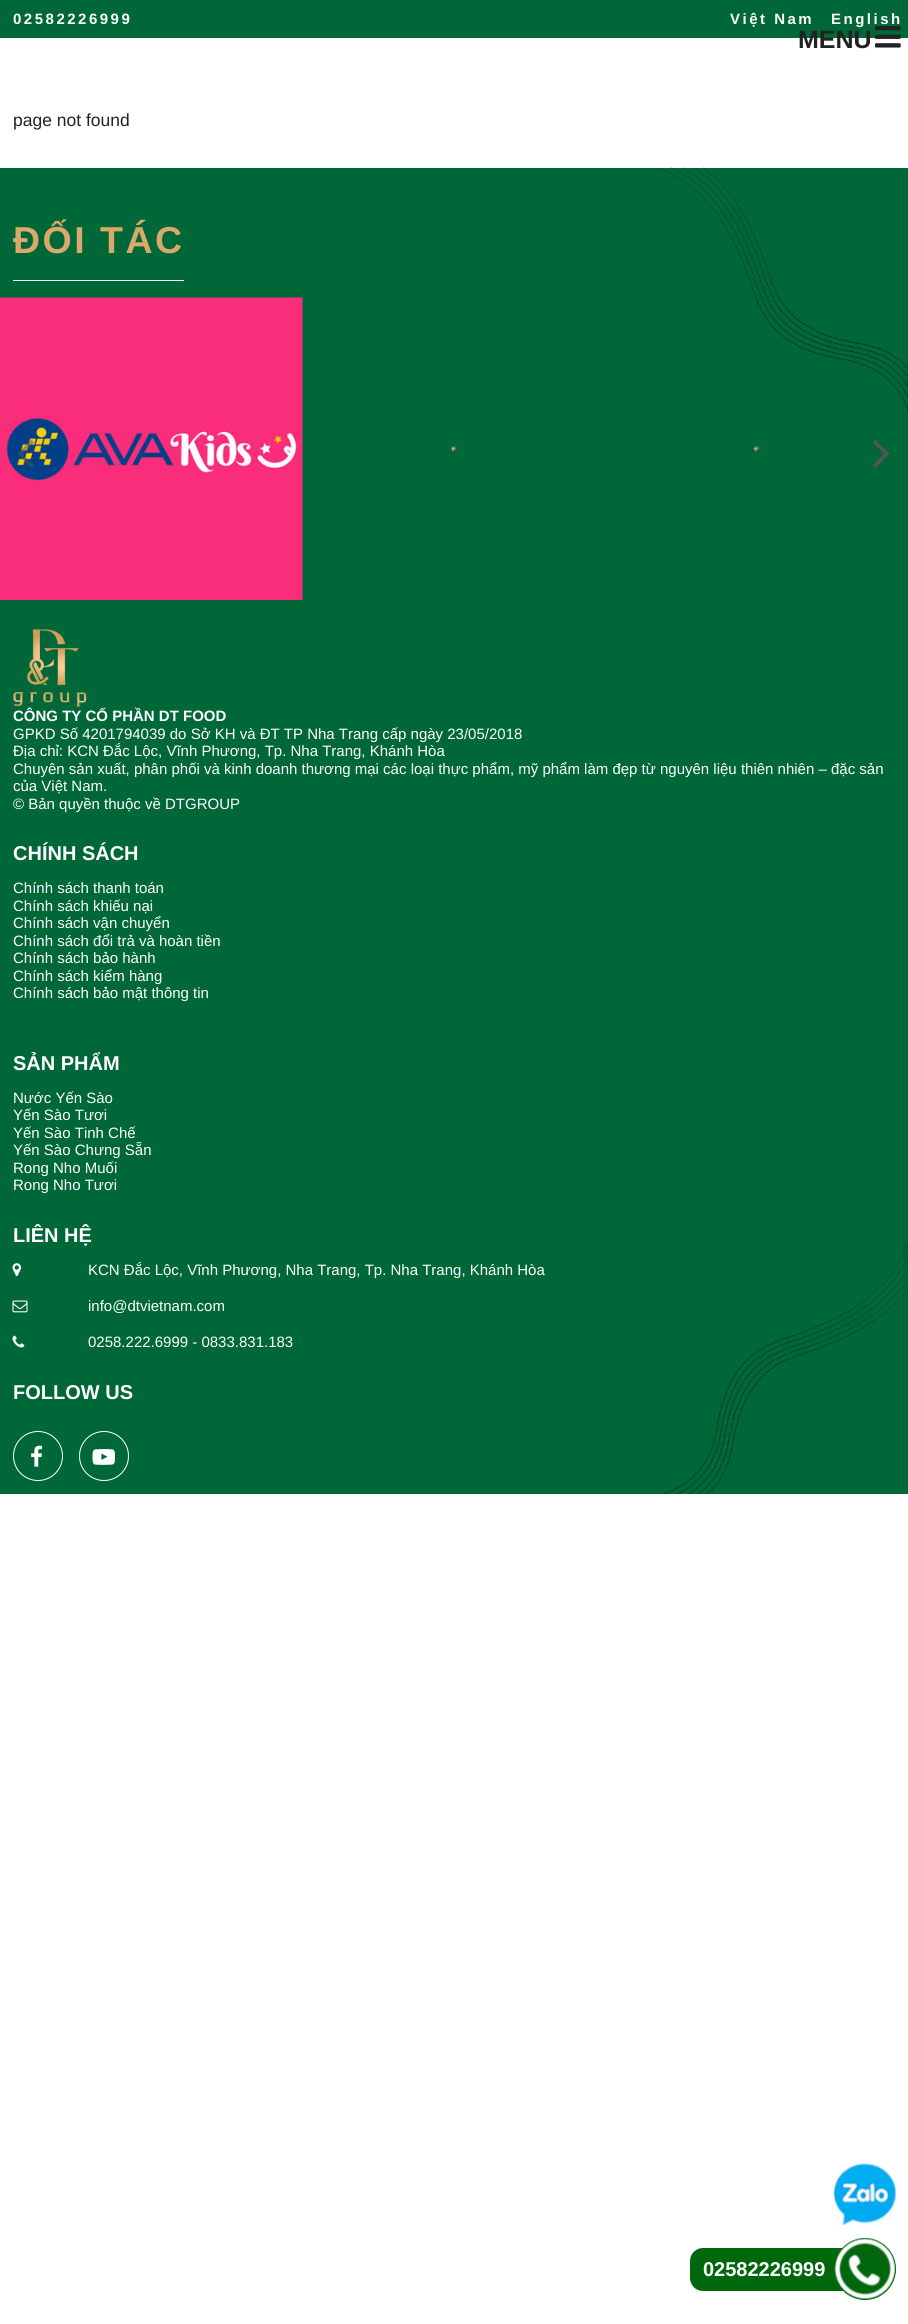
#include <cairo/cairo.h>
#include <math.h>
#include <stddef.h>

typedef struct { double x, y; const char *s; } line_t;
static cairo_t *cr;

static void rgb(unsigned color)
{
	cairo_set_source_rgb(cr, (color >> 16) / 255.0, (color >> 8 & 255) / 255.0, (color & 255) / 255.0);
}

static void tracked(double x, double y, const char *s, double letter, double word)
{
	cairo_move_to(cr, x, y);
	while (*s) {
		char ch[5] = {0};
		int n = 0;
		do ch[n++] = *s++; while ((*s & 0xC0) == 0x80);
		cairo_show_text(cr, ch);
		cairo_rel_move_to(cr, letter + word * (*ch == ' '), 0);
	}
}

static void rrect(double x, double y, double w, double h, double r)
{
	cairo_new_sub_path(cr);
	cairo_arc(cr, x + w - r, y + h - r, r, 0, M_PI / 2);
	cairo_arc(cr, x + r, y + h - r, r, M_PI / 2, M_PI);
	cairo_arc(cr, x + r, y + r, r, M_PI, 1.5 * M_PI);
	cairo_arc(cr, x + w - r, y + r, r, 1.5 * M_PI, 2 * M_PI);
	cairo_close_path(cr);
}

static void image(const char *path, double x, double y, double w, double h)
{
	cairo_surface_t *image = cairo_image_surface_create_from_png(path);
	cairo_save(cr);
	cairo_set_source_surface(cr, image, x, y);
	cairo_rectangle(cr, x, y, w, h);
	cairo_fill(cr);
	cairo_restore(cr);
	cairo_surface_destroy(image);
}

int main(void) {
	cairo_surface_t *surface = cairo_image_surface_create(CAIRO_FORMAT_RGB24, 908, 2324);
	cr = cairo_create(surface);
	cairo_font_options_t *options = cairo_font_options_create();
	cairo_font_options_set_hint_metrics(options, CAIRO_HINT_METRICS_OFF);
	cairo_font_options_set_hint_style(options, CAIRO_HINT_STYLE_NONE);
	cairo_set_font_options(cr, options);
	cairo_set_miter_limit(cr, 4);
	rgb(0xffffff);
	cairo_paint(cr);
	rgb(0x006738);
	cairo_rectangle(cr, 0, 0, 908, 38);
	cairo_fill(cr);
	cairo_rectangle(cr, 0, 168, 908, 1326);
	cairo_fill(cr);
	image("img/2.png", 658, 167, 250, 244);
	rgb(0xffffff);
	cairo_rectangle(cr, 13, 280, 171, 1);
	cairo_fill(cr);
	image("img/3.png", 0, 297, 303, 303);
	image("img/4.png", 451, 446, 6, 6);
	image("img/5.png", 753, 446, 6, 6);
	image("img/6.png", 17, 440, 17, 28);
	image("img/7.png", 873, 440, 16, 28);
	image("img/8.png", 13, 629, 74, 78);
	image("img/9.png", 12, 1263, 10, 13);
	image("img/10.png", 12, 1300, 16, 13);
	image("img/11.png", 12, 1335, 13, 13);
	cairo_arc(cr, 38, 1456, 24.5, 0, 2 * M_PI);
	cairo_set_line_width(cr, 1);
	cairo_stroke(cr);
	image("img/12.png", 31, 1445, 12, 22);
	cairo_arc(cr, 104, 1456, 24.5, 0, 2 * M_PI);
	cairo_stroke(cr);
	image("img/13.png", 92, 1449, 23, 16);
	image("img/14.png", 664, 1243, 244, 251);
	image("img/15.png", 833, 2163, 64, 63);
	rgb(0x00670d);
	rrect(690, 2248, 194, 43, 13);
	cairo_fill(cr);
	cairo_arc(cr, 865, 2269, 30.5, 0, 2 * M_PI);
	cairo_fill_preserve(cr);
	cairo_stroke(cr);
	image("img/16.png", 834, 2238, 62, 62);
	cairo_select_font_face(cr, "Liberation Sans", CAIRO_FONT_SLANT_NORMAL, CAIRO_FONT_WEIGHT_BOLD);
	cairo_set_font_size(cr, 15);
	rgb(0xffffff);
	{
		static const line_t items[] = {
			{13, 24, "02582226999"},
			{730, 24, "Việt Nam"},
			{831, 24, "English"},
		};
		for (size_t i = 0; i < sizeof items / sizeof *items; i++) {
			tracked(items[i].x, items[i].y, items[i].s, 2.5, 0);
		}
	}
	cairo_set_font_size(cr, 25);
	rgb(0x222222);
	cairo_move_to(cr, 798, 48);
	cairo_show_text(cr, "MENU");
	image("img/1.png", 875, 26, 26, 22);
	cairo_select_font_face(cr, "Liberation Sans", CAIRO_FONT_SLANT_NORMAL, CAIRO_FONT_WEIGHT_NORMAL);
	cairo_set_font_size(cr, 17.5);
	cairo_move_to(cr, 13, 126);
	cairo_show_text(cr, "page not found");
	cairo_save(cr);
	cairo_rectangle(cr, 13, 205, 171, 75);
	cairo_clip(cr);
	cairo_select_font_face(cr, "Liberation Sans", CAIRO_FONT_SLANT_NORMAL, CAIRO_FONT_WEIGHT_BOLD);
	cairo_set_font_size(cr, 37.5);
	rgb(0xdaa969);
	tracked(13, 253, "ĐỐI TÁC", 2.5, 0);
	cairo_restore(cr);
	cairo_select_font_face(cr, "Liberation Sans", CAIRO_FONT_SLANT_NORMAL, CAIRO_FONT_WEIGHT_BOLD);
	cairo_set_font_size(cr, 15);
	rgb(0xffffff);
	cairo_move_to(cr, 13, 721);
	cairo_show_text(cr, "CÔNG TY CỔ PHẦN DT FOOD");
	cairo_select_font_face(cr, "Liberation Sans", CAIRO_FONT_SLANT_NORMAL, CAIRO_FONT_WEIGHT_NORMAL);
	{
		static const line_t items[] = {
			{13, 739, "GPKD Số 4201794039 do Sở KH và ĐT TP Nha Trang cấp ngày 23/05/2018"},
			{13, 756, "Địa chỉ: KCN Đắc Lộc, Vĩnh Phương, Tp. Nha Trang, Khánh Hòa"},
			{13, 774, "Chuyên sản xuất, phân phối và kinh doanh thương mại các loại thực phẩm, mỹ phẩm làm đẹp từ nguyên liệu thiên nhiên – đặc sản"},
			{13, 791, "của Việt Nam."},
			{13, 809, "© Bản quyền thuộc về DTGROUP"},
		};
		for (size_t i = 0; i < sizeof items / sizeof *items; i++) {
			cairo_move_to(cr, items[i].x, items[i].y);
			cairo_show_text(cr, items[i].s);
		}
	}
	cairo_select_font_face(cr, "Liberation Sans", CAIRO_FONT_SLANT_NORMAL, CAIRO_FONT_WEIGHT_BOLD);
	cairo_set_font_size(cr, 20);
	cairo_move_to(cr, 13, 860);
	cairo_show_text(cr, "CHÍNH SÁCH");
	cairo_select_font_face(cr, "Liberation Sans", CAIRO_FONT_SLANT_NORMAL, CAIRO_FONT_WEIGHT_NORMAL);
	cairo_set_font_size(cr, 15);
	{
		static const line_t items[] = {
			{13, 893, "Chính sách thanh toán"},
			{13, 911, "Chính sách khiếu nại"},
			{13, 928, "Chính sách vận chuyển"},
			{13, 946, "Chính sách đổi trả và hoàn tiền"},
			{13, 963, "Chính sách bảo hành"},
			{13, 981, "Chính sách kiểm hàng"},
			{13, 998, "Chính sách bảo mật thông tin"},
		};
		for (size_t i = 0; i < sizeof items / sizeof *items; i++) {
			cairo_move_to(cr, items[i].x, items[i].y);
			cairo_show_text(cr, items[i].s);
		}
	}
	cairo_select_font_face(cr, "Liberation Sans", CAIRO_FONT_SLANT_NORMAL, CAIRO_FONT_WEIGHT_BOLD);
	cairo_set_font_size(cr, 20);
	cairo_move_to(cr, 13, 1070);
	cairo_show_text(cr, "SẢN PHẨM");
	cairo_select_font_face(cr, "Liberation Sans", CAIRO_FONT_SLANT_NORMAL, CAIRO_FONT_WEIGHT_NORMAL);
	cairo_set_font_size(cr, 15);
	{
		static const line_t items[] = {
			{13, 1103, "Nước Yến Sào"},
			{13, 1120, "Yến Sào Tươi"},
			{13, 1138, "Yến Sào Tinh Chế"},
			{13, 1155, "Yến Sào Chưng Sẵn"},
			{13, 1173, "Rong Nho Muối"},
			{13, 1190, "Rong Nho Tươi"},
		};
		for (size_t i = 0; i < sizeof items / sizeof *items; i++) {
			cairo_move_to(cr, items[i].x, items[i].y);
			cairo_show_text(cr, items[i].s);
		}
	}
	cairo_select_font_face(cr, "Liberation Sans", CAIRO_FONT_SLANT_NORMAL, CAIRO_FONT_WEIGHT_BOLD);
	cairo_set_font_size(cr, 20);
	cairo_move_to(cr, 13, 1242);
	cairo_show_text(cr, "LIÊN HỆ");
	cairo_select_font_face(cr, "Liberation Sans", CAIRO_FONT_SLANT_NORMAL, CAIRO_FONT_WEIGHT_NORMAL);
	cairo_set_font_size(cr, 15);
	{
		static const line_t items[] = {
			{88, 1275, "KCN Đắc Lộc, Vĩnh Phương, Nha Trang, Tp. Nha Trang, Khánh Hòa"},
			{88, 1311, "info@dtvietnam.com"},
			{88, 1347, "0258.222.6999 - 0833.831.183"},
		};
		for (size_t i = 0; i < sizeof items / sizeof *items; i++) {
			cairo_move_to(cr, items[i].x, items[i].y);
			cairo_show_text(cr, items[i].s);
		}
	}
	cairo_select_font_face(cr, "Liberation Sans", CAIRO_FONT_SLANT_NORMAL, CAIRO_FONT_WEIGHT_BOLD);
	cairo_set_font_size(cr, 20);
	cairo_move_to(cr, 13, 1399);
	cairo_show_text(cr, "FOLLOW US");
	cairo_move_to(cr, 703, 2276);
	cairo_show_text(cr, "02582226999");
	cairo_surface_write_to_png(surface, "page.png");
	cairo_font_options_destroy(options);
	cairo_destroy(cr);
	cairo_surface_destroy(surface);
	return 0;
}
